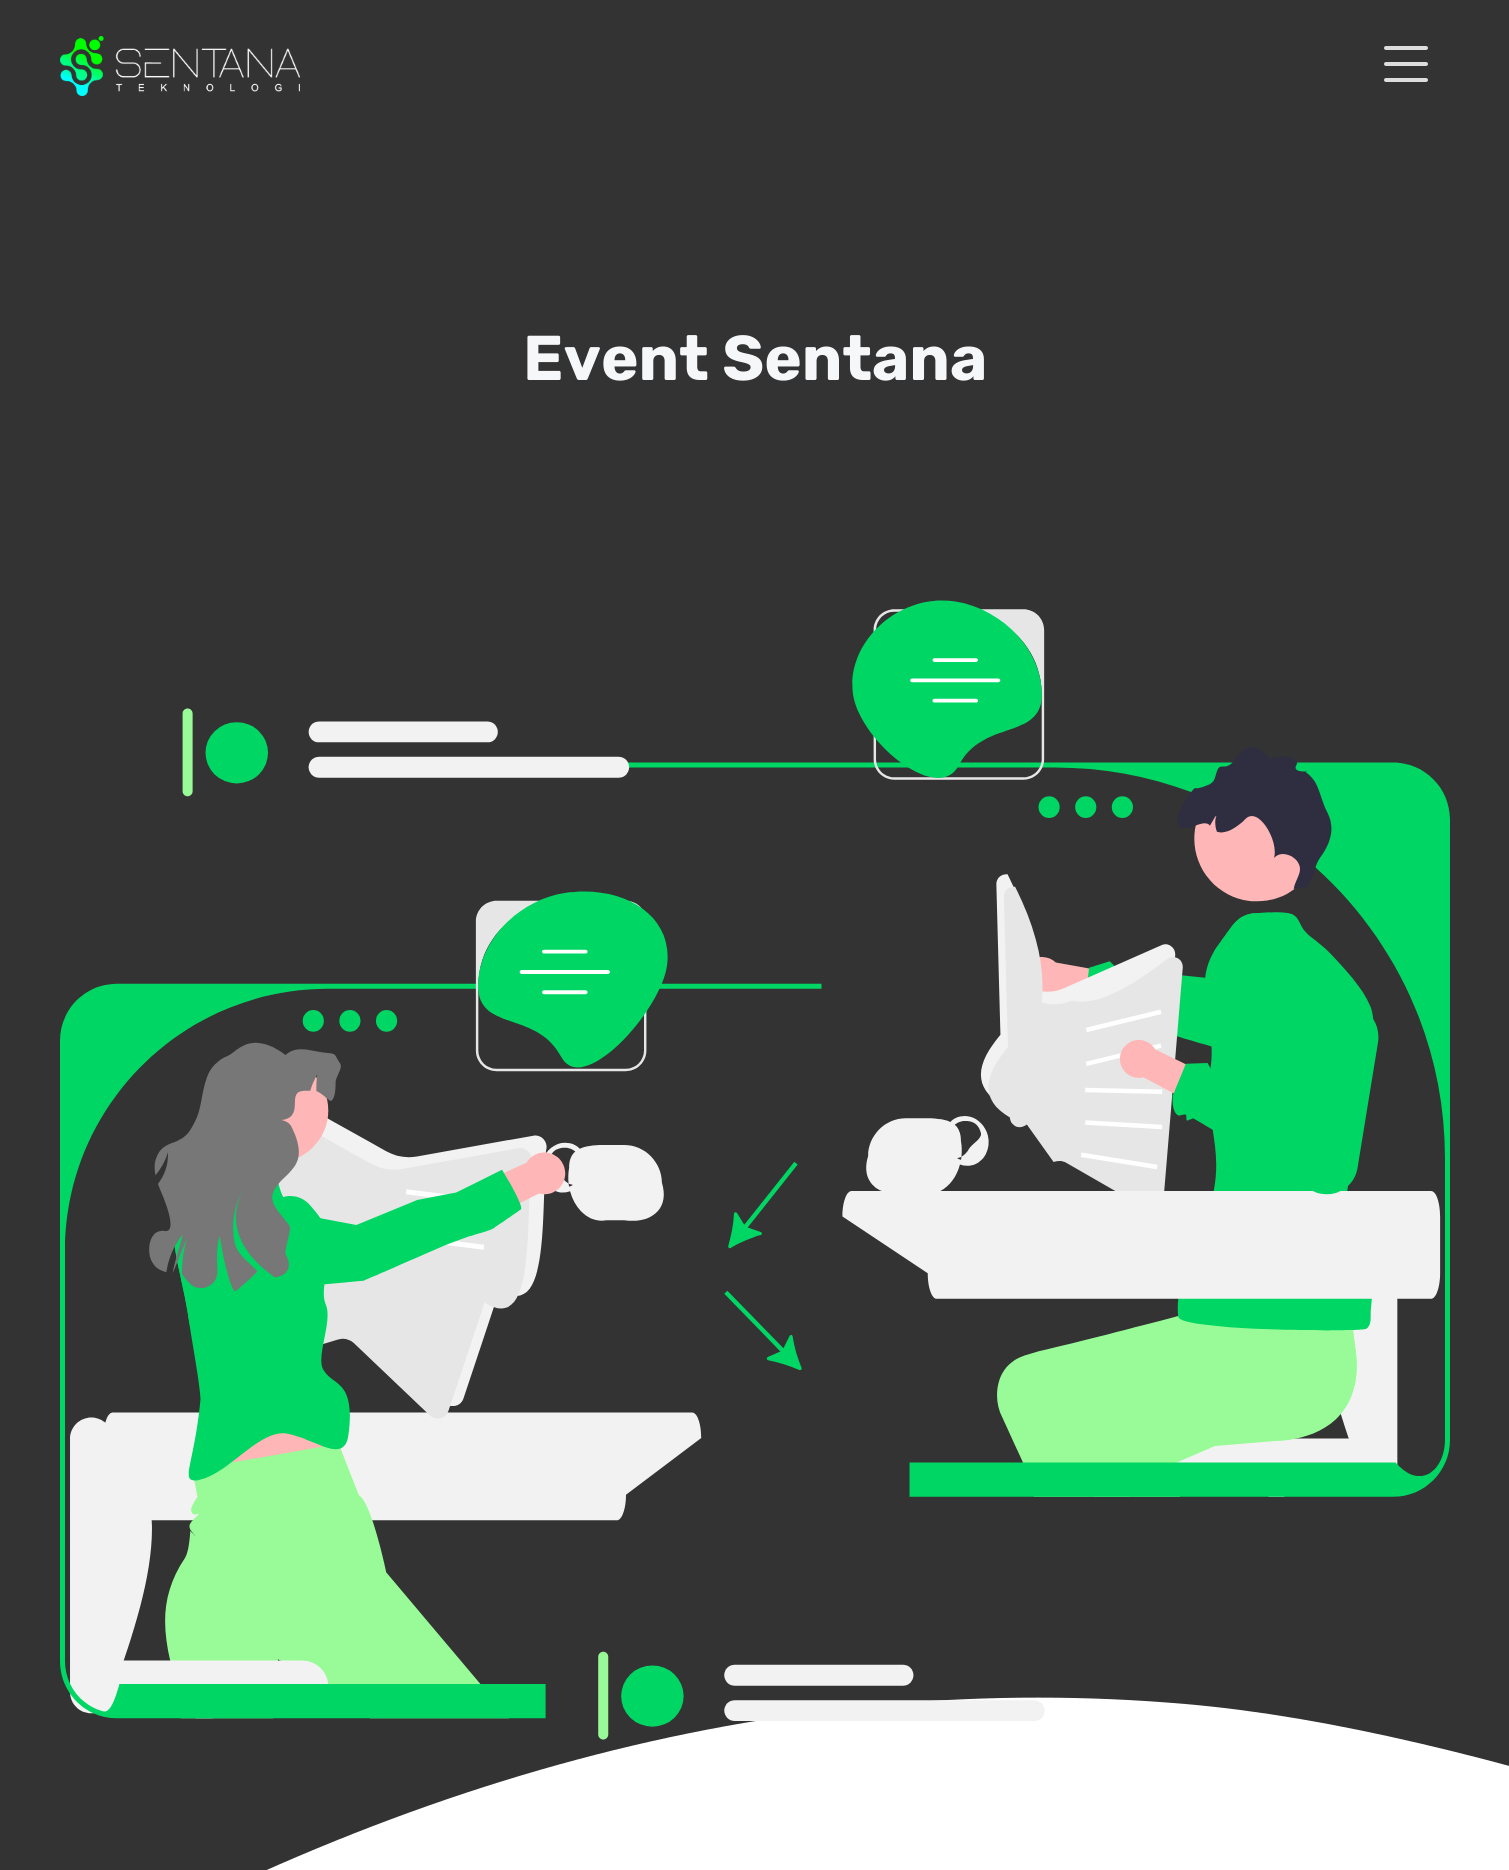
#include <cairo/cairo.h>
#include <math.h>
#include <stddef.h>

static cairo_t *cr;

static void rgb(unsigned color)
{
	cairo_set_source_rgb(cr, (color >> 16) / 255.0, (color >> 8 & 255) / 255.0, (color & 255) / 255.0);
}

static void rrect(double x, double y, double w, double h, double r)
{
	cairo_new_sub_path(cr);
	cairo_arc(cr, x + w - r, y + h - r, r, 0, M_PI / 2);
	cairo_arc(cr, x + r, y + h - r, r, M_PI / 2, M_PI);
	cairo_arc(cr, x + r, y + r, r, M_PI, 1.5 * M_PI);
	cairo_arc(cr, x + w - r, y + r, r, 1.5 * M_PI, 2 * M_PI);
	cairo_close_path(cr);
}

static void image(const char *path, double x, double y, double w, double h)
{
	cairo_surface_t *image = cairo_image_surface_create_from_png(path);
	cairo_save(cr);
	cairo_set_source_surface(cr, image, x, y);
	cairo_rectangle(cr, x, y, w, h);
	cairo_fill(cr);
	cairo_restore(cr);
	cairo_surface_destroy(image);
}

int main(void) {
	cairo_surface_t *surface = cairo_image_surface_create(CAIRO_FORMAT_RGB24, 1509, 1870);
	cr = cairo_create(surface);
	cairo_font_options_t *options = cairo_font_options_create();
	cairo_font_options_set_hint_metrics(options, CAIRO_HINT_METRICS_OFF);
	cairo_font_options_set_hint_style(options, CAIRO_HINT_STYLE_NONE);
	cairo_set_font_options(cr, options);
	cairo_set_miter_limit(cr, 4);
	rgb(0xffffff);
	cairo_paint(cr);
	rgb(0x333333);
	cairo_set_fill_rule(cr, CAIRO_FILL_RULE_EVEN_ODD);
	cairo_new_path(cr);
	cairo_move_to(cr, 0, 0);
	cairo_line_to(cr, 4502, 0);
	cairo_line_to(cr, 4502, 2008);
	cairo_curve_to(cr, 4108, 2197, 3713, 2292, 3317, 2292);
	cairo_curve_to(cr, 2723, 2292, 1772, 1754, 1185, 1704);
	cairo_curve_to(cr, 794, 1670, 399, 1772, 0, 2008);
	cairo_close_path(cr);
	cairo_fill(cr);
	image("img/1.png", 60, 36, 240, 60);
	rgb(0xdddddd);
	rrect(1384, 46, 44, 4, 2);
	cairo_fill(cr);
	rrect(1384, 62, 44, 4, 2);
	cairo_fill(cr);
	rrect(1384, 78, 44, 4, 2);
	cairo_fill(cr);
	image("img/2.png", 60, 600, 1390, 1140);
	cairo_select_font_face(cr, "Rubik", CAIRO_FONT_SLANT_NORMAL, CAIRO_FONT_WEIGHT_BOLD);
	cairo_set_font_size(cr, 63.25);
	rgb(0xf5f7f9);
	cairo_move_to(cr, 523, 380);
	cairo_show_text(cr, "Event Sentana");
	cairo_surface_write_to_png(surface, "page.png");
	cairo_font_options_destroy(options);
	cairo_destroy(cr);
	cairo_surface_destroy(surface);
	return 0;
}
